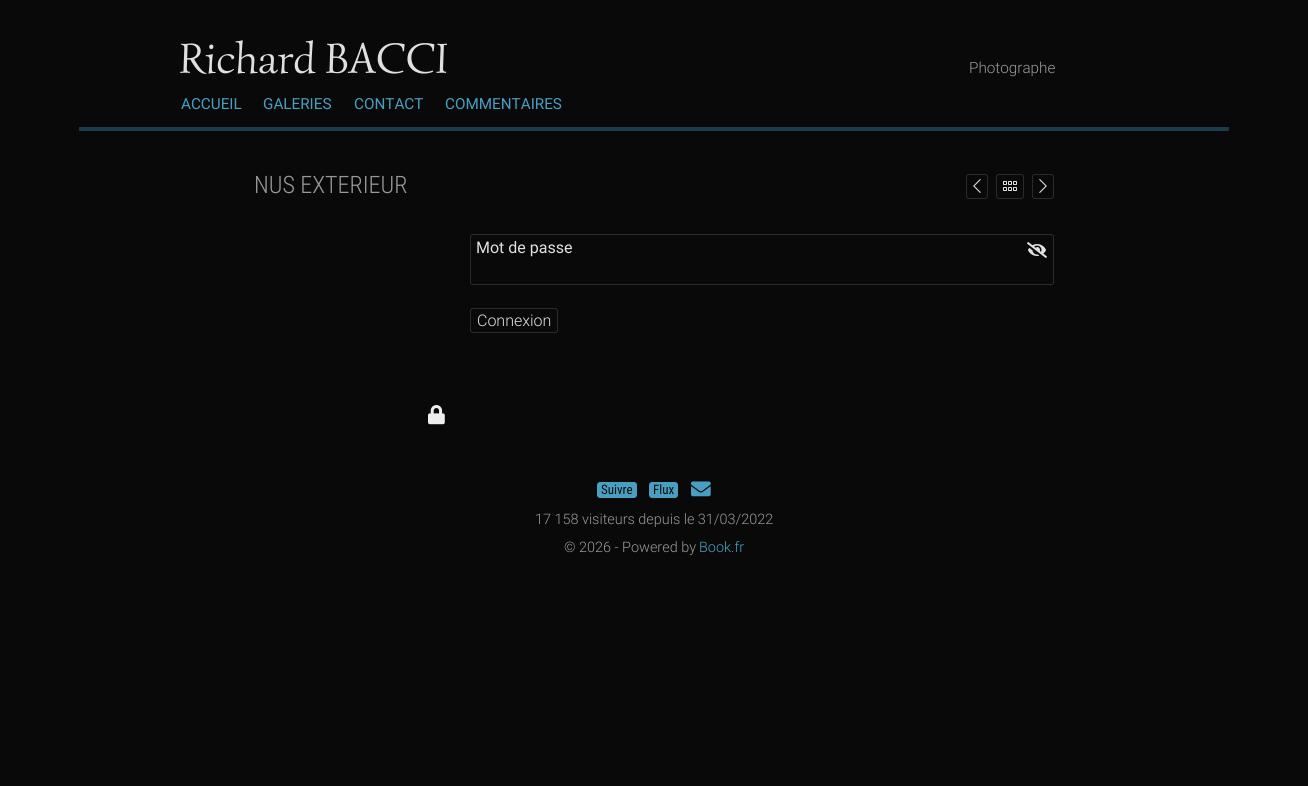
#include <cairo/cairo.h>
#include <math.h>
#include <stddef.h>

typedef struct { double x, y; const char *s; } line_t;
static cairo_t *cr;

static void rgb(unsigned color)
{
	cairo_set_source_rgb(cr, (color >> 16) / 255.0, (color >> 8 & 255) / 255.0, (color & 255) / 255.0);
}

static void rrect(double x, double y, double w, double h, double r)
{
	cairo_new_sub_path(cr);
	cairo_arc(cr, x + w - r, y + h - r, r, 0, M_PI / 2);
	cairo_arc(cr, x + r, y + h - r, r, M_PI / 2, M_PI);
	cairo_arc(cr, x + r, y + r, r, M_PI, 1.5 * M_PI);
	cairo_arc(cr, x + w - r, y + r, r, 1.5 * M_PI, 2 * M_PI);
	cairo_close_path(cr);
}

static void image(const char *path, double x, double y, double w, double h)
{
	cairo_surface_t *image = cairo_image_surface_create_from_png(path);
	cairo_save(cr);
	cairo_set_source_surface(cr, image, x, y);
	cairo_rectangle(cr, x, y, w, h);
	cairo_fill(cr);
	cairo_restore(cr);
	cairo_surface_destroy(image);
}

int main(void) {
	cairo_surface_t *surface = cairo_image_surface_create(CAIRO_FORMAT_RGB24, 1308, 786);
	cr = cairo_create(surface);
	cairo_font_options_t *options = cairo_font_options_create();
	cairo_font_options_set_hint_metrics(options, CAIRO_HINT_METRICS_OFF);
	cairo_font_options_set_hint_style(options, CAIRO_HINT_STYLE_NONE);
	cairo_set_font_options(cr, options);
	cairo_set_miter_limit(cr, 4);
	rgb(0x090909);
	cairo_paint(cr);
	rgb(0x1b3c4a);
	cairo_rectangle(cr, 79, 127, 1150, 4);
	cairo_fill(cr);
	rrect(966.5, 174.5, 21, 24, 2.5);
	rgb(0x2b2b2b);
	cairo_set_line_width(cr, 1);
	cairo_stroke(cr);
	image("img/1.png", 973, 179, 8, 14);
	rrect(996.5, 174.5, 27, 24, 2.5);
	cairo_stroke(cr);
	image("img/2.png", 1003, 181, 14, 10);
	rrect(1032.5, 174.5, 21, 24, 2.5);
	cairo_stroke(cr);
	image("img/3.png", 1039, 179, 8, 14);
	rrect(470.5, 234.5, 583, 50, 2.5);
	cairo_stroke(cr);
	image("img/4.png", 1027, 242, 20, 16);
	rgb(0x090909);
	cairo_new_path(cr);
	cairo_move_to(cr, 471, 259);
	cairo_line_to(cr, 1053, 259);
	cairo_line_to(cr, 1053, 282);
	cairo_curve_to(cr, 1053, 283, 1052, 284, 1051, 284);
	cairo_line_to(cr, 473, 284);
	cairo_curve_to(cr, 472, 284, 471, 283, 471, 282);
	cairo_close_path(cr);
	cairo_fill(cr);
	rrect(470.5, 308.5, 87, 24, 2.5);
	rgb(0x2b2b2b);
	cairo_stroke(cr);
	image("img/5.png", 428, 405, 17, 20);
	rgb(0x489fc2);
	rrect(597, 482, 40, 16, 3);
	cairo_fill(cr);
	rrect(649, 482, 29, 16, 3);
	cairo_fill(cr);
	image("img/6.png", 691, 481, 20, 16);
	cairo_select_font_face(cr, "Simonetta", CAIRO_FONT_SLANT_NORMAL, CAIRO_FONT_WEIGHT_NORMAL);
	cairo_set_font_size(cr, 43.25);
	rgb(0xe0e0e0);
	cairo_move_to(cr, 179, 73);
	cairo_show_text(cr, "Richard BACCI");
	cairo_select_font_face(cr, "Roboto Light", CAIRO_FONT_SLANT_NORMAL, CAIRO_FONT_WEIGHT_NORMAL);
	cairo_set_font_size(cr, 15.25);
	rgb(0x999999);
	cairo_move_to(cr, 969, 73);
	cairo_show_text(cr, "Photographe");
	cairo_select_font_face(cr, "Roboto", CAIRO_FONT_SLANT_NORMAL, CAIRO_FONT_WEIGHT_NORMAL);
	rgb(0x489fc2);
	{
		static const line_t items[] = {
			{181, 109, "ACCUEIL"},
			{263, 109, "GALERIES"},
			{354, 109, "CONTACT"},
			{445, 109, "COMMENTAIRES"},
		};
		for (size_t i = 0; i < sizeof items / sizeof *items; i++) {
			cairo_move_to(cr, items[i].x, items[i].y);
			cairo_show_text(cr, items[i].s);
		}
	}
	cairo_select_font_face(cr, "Roboto Condensed Light", CAIRO_FONT_SLANT_NORMAL, CAIRO_FONT_WEIGHT_NORMAL);
	cairo_set_font_size(cr, 24);
	rgb(0x999999);
	cairo_move_to(cr, 254, 193);
	cairo_show_text(cr, "NUS EXTERIEUR");
	cairo_select_font_face(cr, "Roboto", CAIRO_FONT_SLANT_NORMAL, CAIRO_FONT_WEIGHT_NORMAL);
	cairo_set_font_size(cr, 16);
	rgb(0xe0e0e0);
	cairo_move_to(cr, 476, 253);
	cairo_show_text(cr, "Mot de passe");
	cairo_select_font_face(cr, "Roboto Light", CAIRO_FONT_SLANT_NORMAL, CAIRO_FONT_WEIGHT_NORMAL);
	cairo_move_to(cr, 477, 326);
	cairo_show_text(cr, "Connexion");
	cairo_select_font_face(cr, "Roboto Condensed", CAIRO_FONT_SLANT_NORMAL, CAIRO_FONT_WEIGHT_NORMAL);
	cairo_set_font_size(cr, 13);
	rgb(0x090909);
	cairo_move_to(cr, 601, 494);
	cairo_show_text(cr, "Suivre");
	cairo_move_to(cr, 653, 494);
	cairo_show_text(cr, "Flux");
	cairo_select_font_face(cr, "Roboto Light", CAIRO_FONT_SLANT_NORMAL, CAIRO_FONT_WEIGHT_NORMAL);
	cairo_set_font_size(cr, 14.4);
	rgb(0x999999);
	cairo_move_to(cr, 535, 524);
	cairo_show_text(cr, "17 158 visiteurs depuis le 31/03/2022");
	cairo_move_to(cr, 564, 552);
	cairo_show_text(cr, "© 2026 - Powered by");
	rgb(0x489fc2);
	cairo_move_to(cr, 699, 552);
	cairo_show_text(cr, "Book.fr");
	cairo_surface_write_to_png(surface, "page.png");
	cairo_font_options_destroy(options);
	cairo_destroy(cr);
	cairo_surface_destroy(surface);
	return 0;
}
